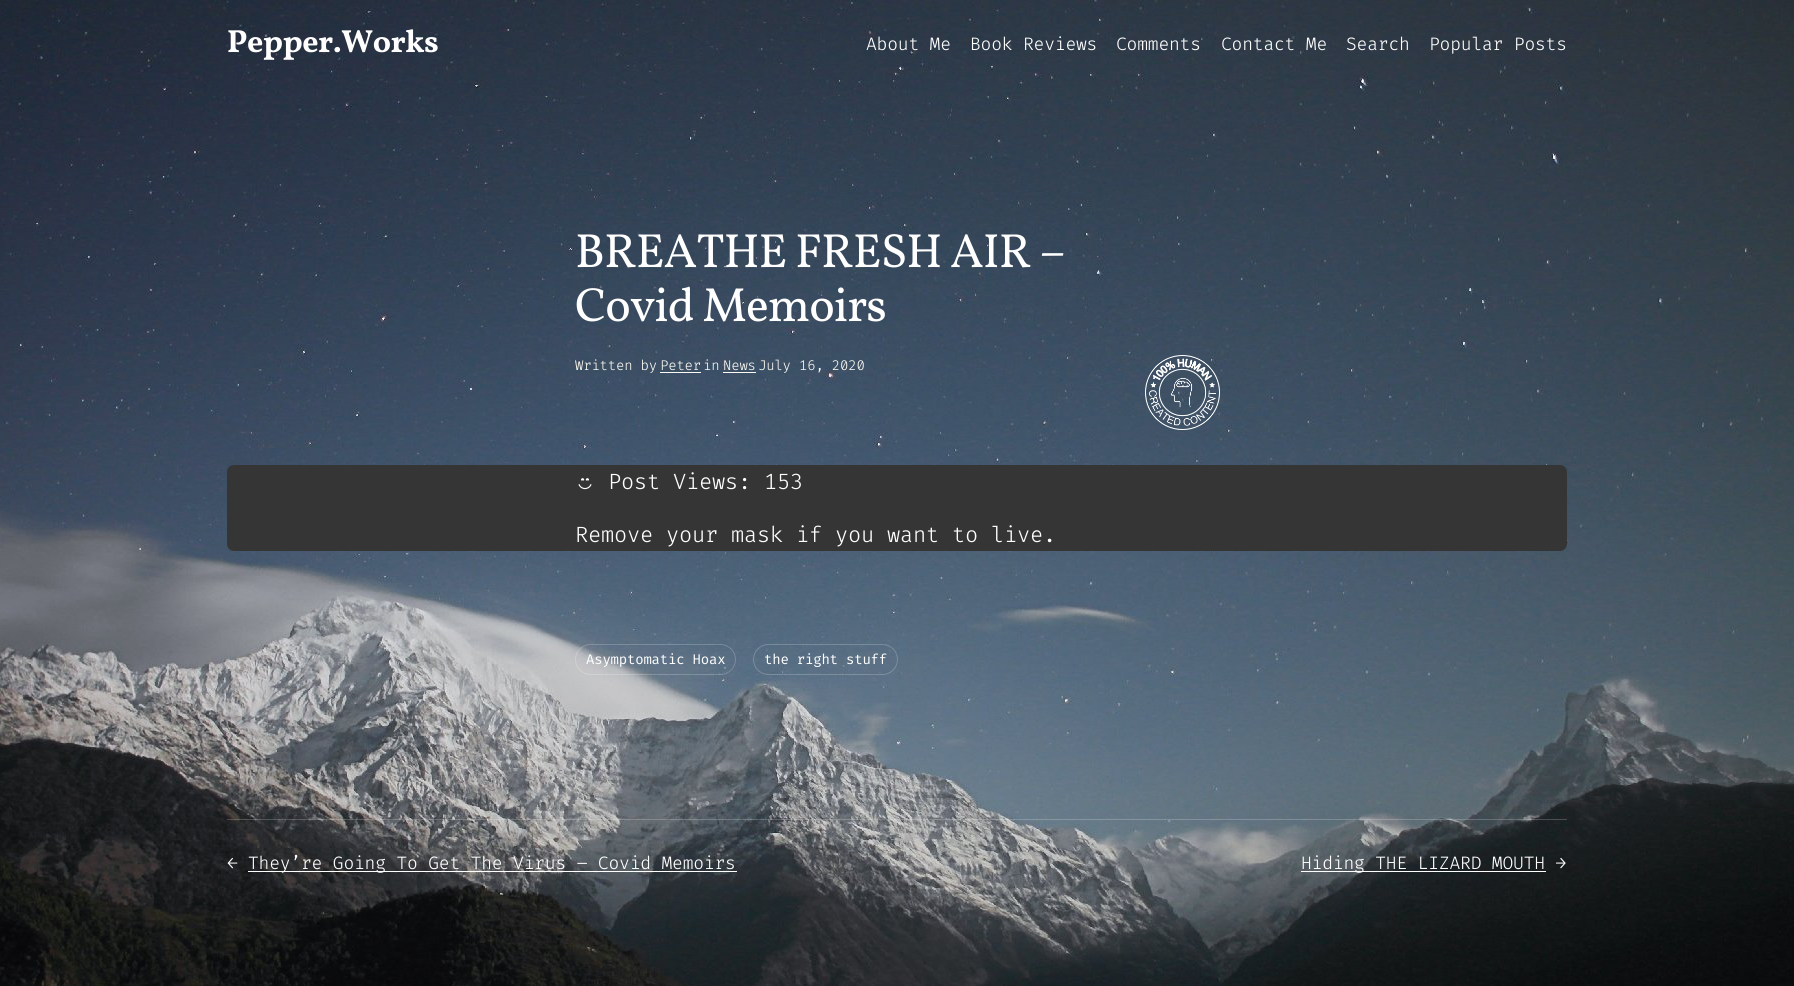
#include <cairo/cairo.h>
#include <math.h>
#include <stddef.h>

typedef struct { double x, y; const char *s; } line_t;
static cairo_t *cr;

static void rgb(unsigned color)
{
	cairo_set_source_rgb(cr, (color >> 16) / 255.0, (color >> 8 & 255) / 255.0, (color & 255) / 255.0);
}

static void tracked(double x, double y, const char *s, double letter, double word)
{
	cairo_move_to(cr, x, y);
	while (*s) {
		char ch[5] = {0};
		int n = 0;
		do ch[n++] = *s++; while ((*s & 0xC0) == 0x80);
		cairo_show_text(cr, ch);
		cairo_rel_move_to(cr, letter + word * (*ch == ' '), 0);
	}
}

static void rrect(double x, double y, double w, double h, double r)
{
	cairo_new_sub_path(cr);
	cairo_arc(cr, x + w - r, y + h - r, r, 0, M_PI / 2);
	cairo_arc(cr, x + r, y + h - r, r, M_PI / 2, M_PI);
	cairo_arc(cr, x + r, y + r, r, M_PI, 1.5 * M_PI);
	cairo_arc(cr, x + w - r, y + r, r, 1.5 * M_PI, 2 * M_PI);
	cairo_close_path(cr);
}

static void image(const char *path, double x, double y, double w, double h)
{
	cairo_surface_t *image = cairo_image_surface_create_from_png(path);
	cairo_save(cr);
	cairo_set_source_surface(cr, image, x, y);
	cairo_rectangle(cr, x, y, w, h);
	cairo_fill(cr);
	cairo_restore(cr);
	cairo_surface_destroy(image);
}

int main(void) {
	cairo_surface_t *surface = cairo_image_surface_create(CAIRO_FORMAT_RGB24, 1794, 986);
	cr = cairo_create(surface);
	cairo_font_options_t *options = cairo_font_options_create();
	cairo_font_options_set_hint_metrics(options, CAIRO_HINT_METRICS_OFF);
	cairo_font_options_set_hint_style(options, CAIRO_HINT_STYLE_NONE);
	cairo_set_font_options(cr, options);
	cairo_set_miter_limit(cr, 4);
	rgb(0xffffff);
	cairo_paint(cr);
	image("img/1.png", 0, 0, 1794, 986);
	rgb(0xfbfaf3);
	cairo_rectangle(cr, 660, 372, 41, 1);
	cairo_fill(cr);
	cairo_rectangle(cr, 723, 372, 33, 1);
	cairo_fill(cr);
	image("img/2.png", 1145, 355, 75, 75);
	rgb(0x353535);
	rrect(227, 465, 1340, 86, 7);
	cairo_fill(cr);
	image("img/3.png", 578, 478, 14, 12);
	rrect(575.5, 644.5, 160, 30, 15);
	cairo_set_source_rgba(cr, 1, 1, 1, 0.2);
	cairo_set_line_width(cr, 1);
	cairo_stroke(cr);
	rrect(753.5, 644.5, 144, 30, 15);
	cairo_stroke(cr);
	cairo_rectangle(cr, 227, 819, 1340, 1);
	cairo_fill(cr);
	rgb(0xffffff);
	cairo_rectangle(cr, 248, 871, 489, 1);
	cairo_fill(cr);
	cairo_rectangle(cr, 1301, 871, 245, 1);
	cairo_fill(cr);
	cairo_select_font_face(cr, "Vollkorn", CAIRO_FONT_SLANT_NORMAL, CAIRO_FONT_WEIGHT_BOLD);
	cairo_set_font_size(cr, 32);
	tracked(227, 52, "Pepper.Works", -0.5, 0);
	cairo_select_font_face(cr, "Fira Code Light", CAIRO_FONT_SLANT_NORMAL, CAIRO_FONT_WEIGHT_NORMAL);
	cairo_set_font_size(cr, 18);
	{
		static const line_t items[] = {
			{866, 50, "About Me"},
			{970, 50, "Book Reviews"},
			{1116, 50, "Comments"},
			{1221, 50, "Contact Me"},
			{1346, 50, "Search"},
			{1429, 50, "Popular Posts"},
		};
		for (size_t i = 0; i < sizeof items / sizeof *items; i++) {
			tracked(items[i].x, items[i].y, items[i].s, -0.2, 0);
		}
	}
	cairo_select_font_face(cr, "Vollkorn", CAIRO_FONT_SLANT_NORMAL, CAIRO_FONT_WEIGHT_NORMAL);
	cairo_set_font_size(cr, 48);
	tracked(575, 267, "BREATHE FRESH AIR –", -1, 0);
	tracked(575, 321, "Covid Memoirs", -1, 0);
	cairo_select_font_face(cr, "Fira Code Light", CAIRO_FONT_SLANT_NORMAL, CAIRO_FONT_WEIGHT_NORMAL);
	cairo_set_font_size(cr, 14);
	rgb(0xfbfaf3);
	{
		static const line_t items[] = {
			{575, 370, "Written by"},
			{660, 370, "Peter"},
			{703, 370, "in"},
			{723, 370, "News"},
			{758, 370, "July 16, 2020"},
		};
		for (size_t i = 0; i < sizeof items / sizeof *items; i++) {
			tracked(items[i].x, items[i].y, items[i].s, -0.2, 0);
		}
	}
	cairo_set_font_size(cr, 22);
	rgb(0xffffff);
	tracked(608, 489, "Post Views: 153", -0.2, 0);
	tracked(575, 542, "Remove your mask if you want to live.", -0.2, 0);
	cairo_select_font_face(cr, "Fira Code", CAIRO_FONT_SLANT_NORMAL, CAIRO_FONT_WEIGHT_NORMAL);
	cairo_set_font_size(cr, 14);
	tracked(586, 664, "Asymptomatic Hoax", -0.2, 0);
	tracked(764, 664, "the right stuff", -0.2, 0);
	cairo_select_font_face(cr, "Fira Code Light", CAIRO_FONT_SLANT_NORMAL, CAIRO_FONT_WEIGHT_NORMAL);
	cairo_set_font_size(cr, 18);
	{
		static const line_t items[] = {
			{227, 869, "←"},
			{248, 869, "They’re Going To Get The Virus – Covid Memoirs"},
			{1301, 869, "Hiding THE LIZARD MOUTH →"},
		};
		for (size_t i = 0; i < sizeof items / sizeof *items; i++) {
			tracked(items[i].x, items[i].y, items[i].s, -0.2, 0);
		}
	}
	cairo_surface_write_to_png(surface, "page.png");
	cairo_font_options_destroy(options);
	cairo_destroy(cr);
	cairo_surface_destroy(surface);
	return 0;
}
